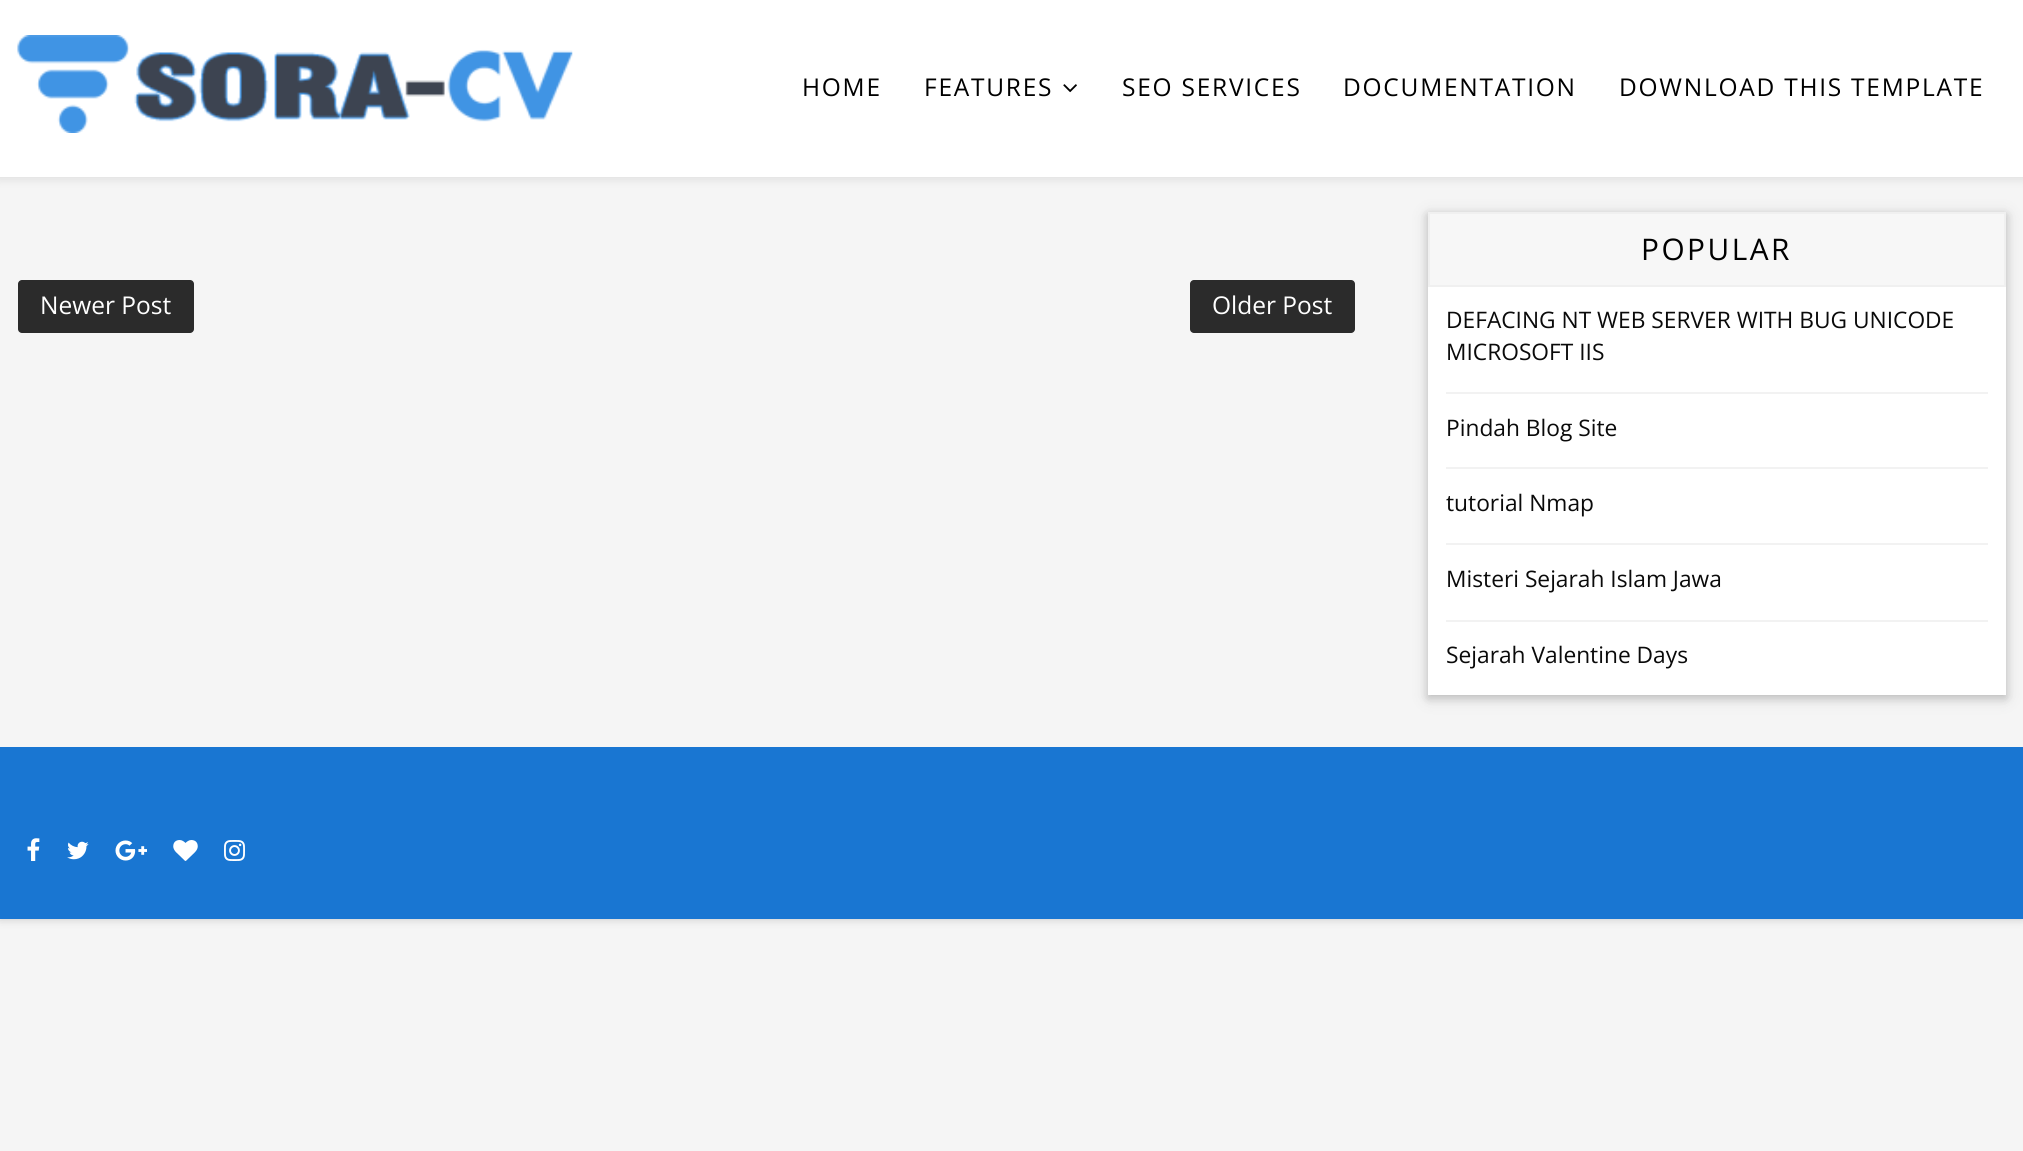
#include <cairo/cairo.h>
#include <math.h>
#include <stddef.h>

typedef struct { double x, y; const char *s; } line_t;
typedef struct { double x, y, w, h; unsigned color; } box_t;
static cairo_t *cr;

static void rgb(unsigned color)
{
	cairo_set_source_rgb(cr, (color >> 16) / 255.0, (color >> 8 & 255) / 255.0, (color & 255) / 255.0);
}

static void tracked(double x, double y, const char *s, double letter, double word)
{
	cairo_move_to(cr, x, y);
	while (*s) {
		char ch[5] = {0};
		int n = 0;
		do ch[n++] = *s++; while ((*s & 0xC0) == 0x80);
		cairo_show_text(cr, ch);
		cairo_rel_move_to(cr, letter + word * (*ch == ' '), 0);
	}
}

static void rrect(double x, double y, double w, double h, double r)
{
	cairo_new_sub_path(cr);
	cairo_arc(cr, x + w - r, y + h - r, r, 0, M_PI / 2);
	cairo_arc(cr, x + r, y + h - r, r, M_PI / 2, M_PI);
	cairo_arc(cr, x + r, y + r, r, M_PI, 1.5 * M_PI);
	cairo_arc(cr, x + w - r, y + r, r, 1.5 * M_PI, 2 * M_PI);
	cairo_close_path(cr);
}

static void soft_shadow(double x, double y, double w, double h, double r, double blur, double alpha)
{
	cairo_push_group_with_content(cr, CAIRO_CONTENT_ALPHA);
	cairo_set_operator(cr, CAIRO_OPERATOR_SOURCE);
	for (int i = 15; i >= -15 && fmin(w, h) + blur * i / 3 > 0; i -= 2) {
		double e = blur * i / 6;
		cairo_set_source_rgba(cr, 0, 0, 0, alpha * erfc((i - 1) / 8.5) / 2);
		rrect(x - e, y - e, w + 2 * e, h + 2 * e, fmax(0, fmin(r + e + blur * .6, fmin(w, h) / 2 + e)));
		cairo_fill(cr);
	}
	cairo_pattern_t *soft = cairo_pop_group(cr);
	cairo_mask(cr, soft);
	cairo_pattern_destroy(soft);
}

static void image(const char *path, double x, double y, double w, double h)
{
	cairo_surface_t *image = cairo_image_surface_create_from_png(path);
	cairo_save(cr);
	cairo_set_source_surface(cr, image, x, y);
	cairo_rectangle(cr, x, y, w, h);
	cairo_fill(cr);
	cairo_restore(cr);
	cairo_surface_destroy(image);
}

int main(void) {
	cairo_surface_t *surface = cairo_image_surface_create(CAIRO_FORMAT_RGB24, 2023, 1151);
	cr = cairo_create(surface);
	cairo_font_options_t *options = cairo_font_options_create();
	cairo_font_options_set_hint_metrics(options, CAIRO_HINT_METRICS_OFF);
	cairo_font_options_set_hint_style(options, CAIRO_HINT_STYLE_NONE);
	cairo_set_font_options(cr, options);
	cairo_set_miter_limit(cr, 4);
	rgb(0xf5f5f5);
	cairo_paint(cr);
	rgb(0x000000);
	soft_shadow(0, 0, 2023, 919, 0, 4.5, 0.2);
	rgb(0xf5f5f5);
	cairo_rectangle(cr, 0, 177, 2023, 570);
	cairo_fill(cr);
	rgb(0x000000);
	soft_shadow(-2, -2, 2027, 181, 0, 5, 0.1);
	rgb(0xffffff);
	cairo_rectangle(cr, 0, 0, 2023, 177);
	cairo_fill(cr);
	image("img/1.png", 17, 35, 556, 98);
	image("img/2.png", 1063, 84, 14, 9);
	rgb(0x2b2b2b);
	rrect(18, 280, 176, 53, 4);
	cairo_fill(cr);
	rrect(1190, 280, 165, 53, 4);
	cairo_fill(cr);
	rgb(0x000000);
	soft_shadow(1428, 215, 578, 483, 0, 9, 0.12);
	soft_shadow(1428, 215, 578, 483, 0, 4.5, 0.16);
	rgb(0xffffff);
	cairo_rectangle(cr, 1428, 287, 578, 408);
	cairo_fill(cr);
	rgb(0xf7f7f7);
	cairo_rectangle(cr, 1429, 213, 576, 73);
	cairo_fill_preserve(cr);
	rgb(0xf0f0f0);
	cairo_stroke(cr);
	{
		static const box_t items[] = {
			{1446, 392, 542, 2, 0xf2f2f2},
			{1446, 467, 542, 2, 0xf2f2f2},
			{1446, 543, 542, 2, 0xf2f2f2},
			{1446, 620, 542, 2, 0xf2f2f2},
			{0, 747, 2023, 172, 0x1976d2},
		};
		for (size_t i = 0; i < sizeof items / sizeof *items; i++) {
			rgb(items[i].color);
			cairo_rectangle(cr, items[i].x, items[i].y, items[i].w, items[i].h);
			cairo_fill(cr);
		}
	}
	image("img/3.png", 27, 838, 13, 23);
	image("img/4.png", 67, 841, 22, 19);
	image("img/5.png", 115, 840, 32, 21);
	image("img/6.png", 173, 840, 25, 21);
	image("img/7.png", 224, 840, 21, 21);
	cairo_select_font_face(cr, "Open Sans", CAIRO_FONT_SLANT_NORMAL, CAIRO_FONT_WEIGHT_NORMAL);
	cairo_set_font_size(cr, 24.5);
	rgb(0x000000);
	{
		static const line_t items[] = {
			{802, 96, "HOME"},
			{924, 96, "FEATURES"},
			{1122, 96, "SEO SERVICES"},
			{1343, 96, "DOCUMENTATION"},
			{1619, 96, "DOWNLOAD THIS TEMPLATE"},
		};
		for (size_t i = 0; i < sizeof items / sizeof *items; i++) {
			tracked(items[i].x, items[i].y, items[i].s, 1.75, 0);
		}
	}
	rgb(0xffffff);
	cairo_move_to(cr, 40, 314);
	cairo_show_text(cr, "Newer Post");
	cairo_move_to(cr, 1212, 314);
	cairo_show_text(cr, "Older Post");
	cairo_set_font_size(cr, 29.75);
	rgb(0x000000);
	tracked(1641, 260, "POPULAR", 2.5, 0);
	cairo_set_font_size(cr, 22.75);
	rgb(0x0a0a0a);
	{
		static const line_t items[] = {
			{1446, 328, "DEFACING NT WEB SERVER WITH BUG UNICODE"},
			{1446, 360, "MICROSOFT IIS"},
			{1446, 436, "Pindah Blog Site"},
			{1446, 511, "tutorial Nmap"},
			{1446, 587, "Misteri Sejarah Islam Jawa"},
			{1446, 663, "Sejarah Valentine Days"},
		};
		for (size_t i = 0; i < sizeof items / sizeof *items; i++) {
			cairo_move_to(cr, items[i].x, items[i].y);
			cairo_show_text(cr, items[i].s);
		}
	}
	cairo_surface_write_to_png(surface, "page.png");
	cairo_font_options_destroy(options);
	cairo_destroy(cr);
	cairo_surface_destroy(surface);
	return 0;
}
